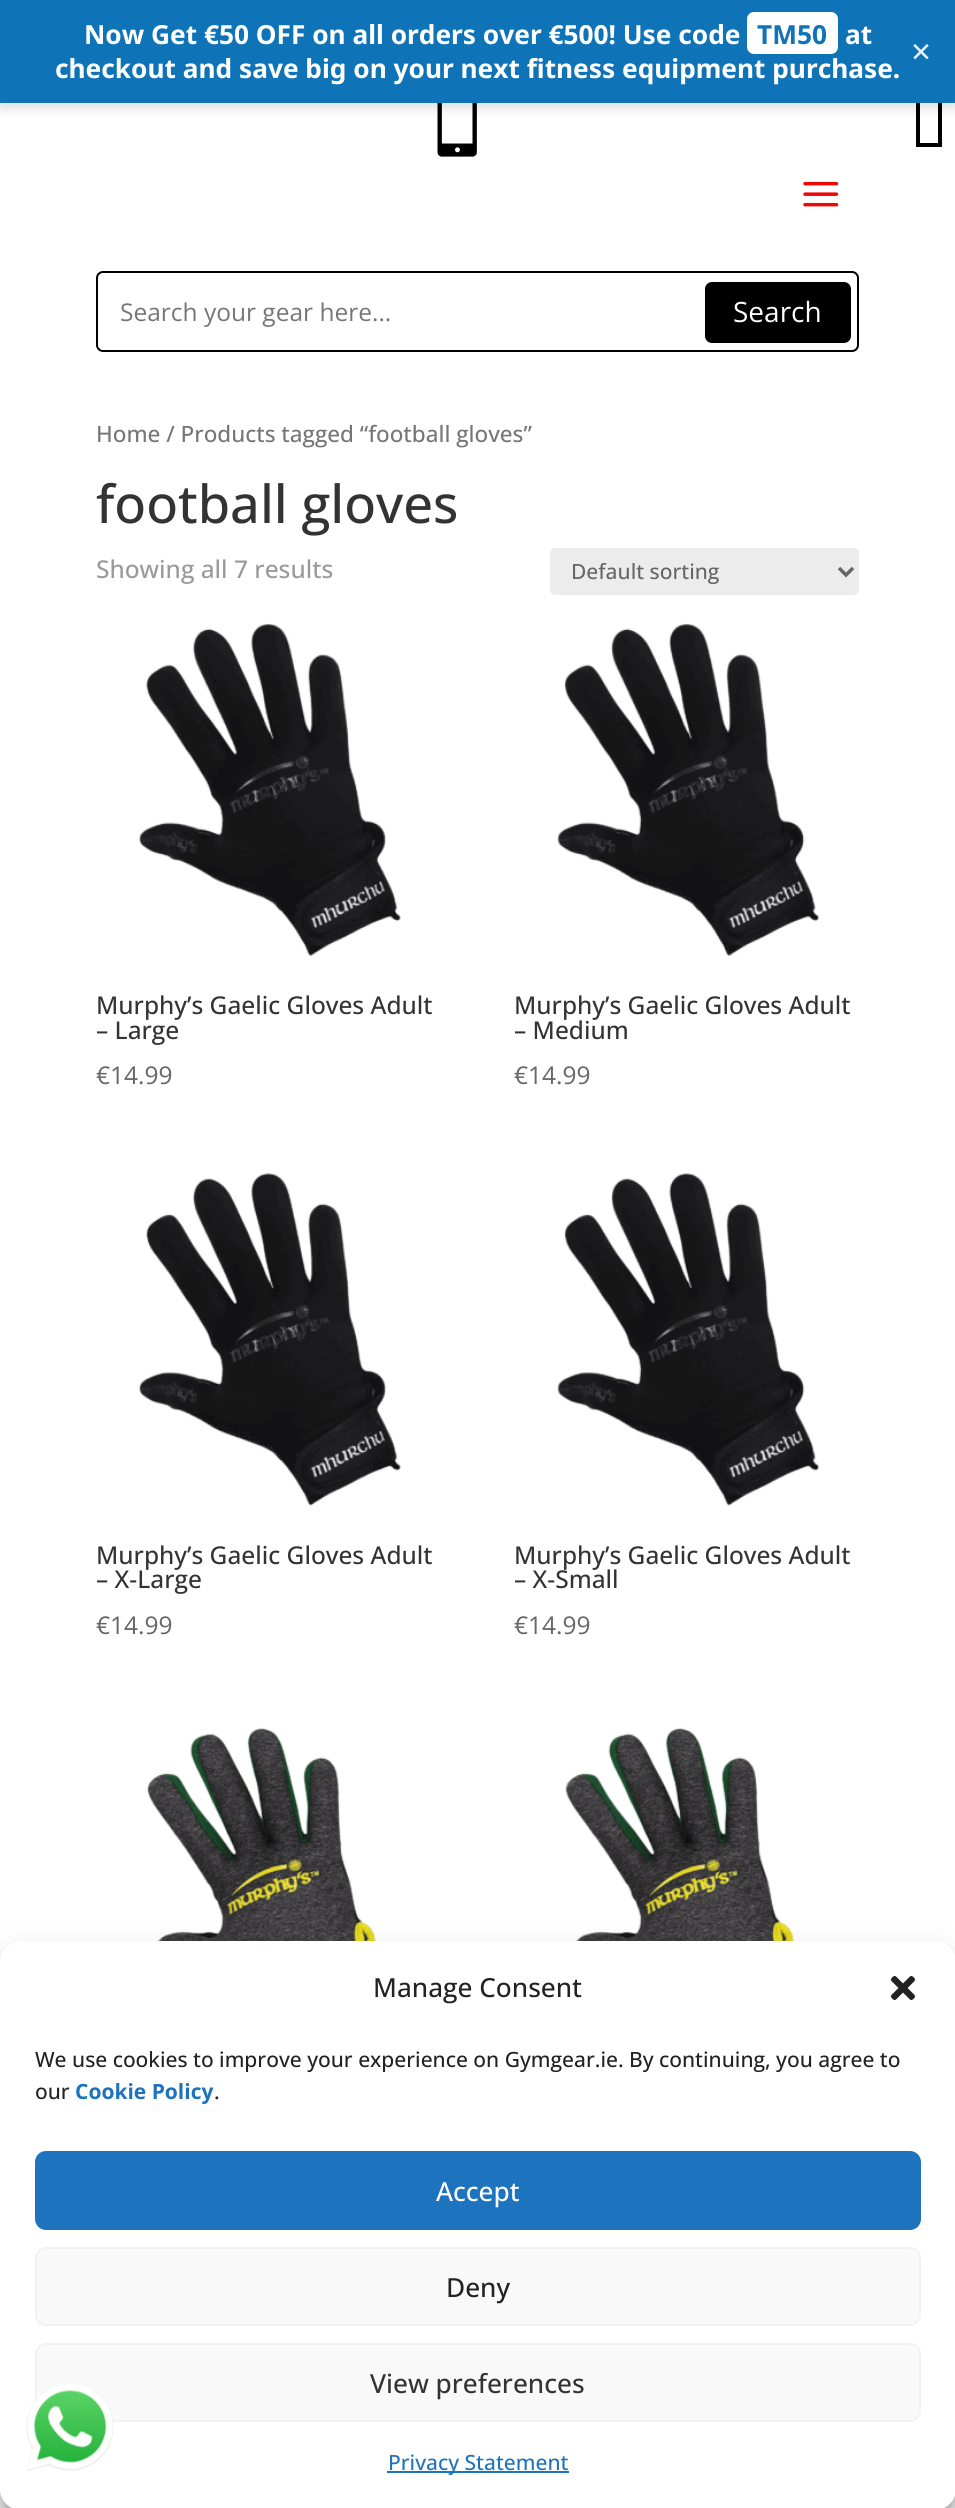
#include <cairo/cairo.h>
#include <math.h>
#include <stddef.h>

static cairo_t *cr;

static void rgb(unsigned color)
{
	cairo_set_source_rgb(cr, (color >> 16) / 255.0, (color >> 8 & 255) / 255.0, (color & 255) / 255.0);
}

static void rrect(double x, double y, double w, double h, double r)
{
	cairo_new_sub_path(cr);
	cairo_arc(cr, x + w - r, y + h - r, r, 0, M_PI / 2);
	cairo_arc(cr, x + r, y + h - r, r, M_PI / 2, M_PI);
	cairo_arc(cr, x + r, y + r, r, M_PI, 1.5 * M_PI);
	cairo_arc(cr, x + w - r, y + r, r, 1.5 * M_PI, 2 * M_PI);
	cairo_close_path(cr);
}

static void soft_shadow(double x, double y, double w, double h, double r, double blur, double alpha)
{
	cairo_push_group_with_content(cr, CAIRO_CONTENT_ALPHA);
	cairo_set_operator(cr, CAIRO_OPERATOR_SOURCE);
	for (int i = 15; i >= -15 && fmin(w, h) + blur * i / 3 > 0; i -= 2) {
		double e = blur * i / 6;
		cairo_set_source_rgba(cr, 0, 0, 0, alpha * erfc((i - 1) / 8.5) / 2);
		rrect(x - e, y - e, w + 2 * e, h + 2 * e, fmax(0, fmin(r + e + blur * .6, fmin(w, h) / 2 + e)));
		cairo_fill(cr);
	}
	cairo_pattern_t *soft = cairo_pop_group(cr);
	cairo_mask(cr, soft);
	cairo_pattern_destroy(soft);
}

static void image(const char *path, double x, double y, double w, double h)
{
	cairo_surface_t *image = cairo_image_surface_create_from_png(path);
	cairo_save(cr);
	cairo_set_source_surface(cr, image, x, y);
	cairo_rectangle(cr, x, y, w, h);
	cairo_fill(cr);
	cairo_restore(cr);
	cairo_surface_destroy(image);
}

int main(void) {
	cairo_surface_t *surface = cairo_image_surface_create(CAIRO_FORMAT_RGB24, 955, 2508);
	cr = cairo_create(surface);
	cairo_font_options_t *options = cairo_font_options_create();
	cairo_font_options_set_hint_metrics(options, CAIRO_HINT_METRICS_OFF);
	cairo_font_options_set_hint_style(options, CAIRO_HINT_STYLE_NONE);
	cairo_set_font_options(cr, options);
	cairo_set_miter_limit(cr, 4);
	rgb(0xffffff);
	cairo_paint(cr);
	image("img/1.png", 437, 103, 40, 54);
	rgb(0x000000);
	cairo_new_path(cr);
	cairo_move_to(cr, 920, 143);
	cairo_line_to(cr, 920, 91);
	cairo_line_to(cr, 938, 91);
	cairo_line_to(cr, 938, 143);
	cairo_close_path(cr);
	cairo_move_to(cr, 916, 147);
	cairo_line_to(cr, 942, 147);
	cairo_line_to(cr, 942, 87);
	cairo_line_to(cr, 916, 87);
	cairo_close_path(cr);
	cairo_fill(cr);
	rgb(0x000000);
	soft_shadow(0, 4, 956, 103, 0, 7, 0.15);
	rgb(0x0f73b8);
	cairo_rectangle(cr, 0, 0, 955, 103);
	cairo_fill(cr);
	rgb(0xffffff);
	rrect(747, 12, 91, 42, 7);
	cairo_fill(cr);
	image("img/2.png", 803, 181, 36, 26);
	rrect(97, 272, 761, 79, 6);
	rgb(0x000000);
	cairo_stroke(cr);
	rgb(0xffffff);
	rrect(98, 273, 599, 77, 7);
	cairo_fill(cr);
	rgb(0x000000);
	rrect(705, 282, 146, 61, 7);
	cairo_fill(cr);
	rgb(0xececec);
	rrect(550, 548, 309, 47, 5);
	cairo_fill(cr);
	cairo_new_path(cr);
	cairo_move_to(cr, 839, 568);
	cairo_line_to(cr, 846, 575);
	cairo_line_to(cr, 853, 568);
	rgb(0x666666);
	cairo_set_line_width(cr, 3.5);
	cairo_stroke(cr);
	image("img/3.png", 138, 623, 263, 334);
	image("img/4.png", 557, 623, 263, 334);
	image("img/5.png", 138, 1172, 263, 335);
	image("img/6.png", 557, 1172, 263, 334);
	image("img/7.png", 146, 1727, 242, 214);
	image("img/8.png", 565, 1727, 242, 214);
	rgb(0x000000);
	soft_shadow(0, 1951, 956, 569, 21, 5, 0.23);
	soft_shadow(0, 1958, 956, 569, 21, 17.5, 0.19);
	rgb(0xffffff);
	rrect(0, 1941, 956, 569, 21);
	cairo_fill(cr);
	image("img/9.png", 891, 1976, 24, 24);
	rgb(0x1e73be);
	rrect(36, 2152, 884, 77, 10);
	cairo_fill_preserve(cr);
	cairo_set_line_width(cr, 2);
	cairo_stroke(cr);
	rgb(0xf9f9f9);
	rrect(36, 2248, 884, 77, 10);
	cairo_fill_preserve(cr);
	rgb(0xf2f2f2);
	cairo_stroke(cr);
	rgb(0xf9f9f9);
	rrect(36, 2344, 884, 77, 10);
	cairo_fill_preserve(cr);
	rgb(0xf2f2f2);
	cairo_stroke(cr);
	rgb(0x1e73be);
	cairo_rectangle(cr, 387, 2471, 182, 2);
	cairo_fill(cr);
	image("img/10.png", 26, 2384, 88, 87);
	cairo_select_font_face(cr, "Noto Sans", CAIRO_FONT_SLANT_NORMAL, CAIRO_FONT_WEIGHT_BOLD);
	cairo_set_font_size(cr, 26.25);
	rgb(0xffffff);
	cairo_move_to(cr, 84, 44);
	cairo_show_text(cr, "Now Get €50 OFF on all orders over €500! Use code");
	rgb(0x0f73b8);
	cairo_move_to(cr, 757, 44);
	cairo_show_text(cr, "TM50");
	rgb(0xffffff);
	cairo_move_to(cr, 845, 44);
	cairo_show_text(cr, "at");
	cairo_select_font_face(cr, "Noto Sans", CAIRO_FONT_SLANT_NORMAL, CAIRO_FONT_WEIGHT_NORMAL);
	cairo_set_font_size(cr, 35);
	rgb(0xe7f1f8);
	cairo_move_to(cr, 911, 64);
	cairo_show_text(cr, "×");
	cairo_select_font_face(cr, "Noto Sans", CAIRO_FONT_SLANT_NORMAL, CAIRO_FONT_WEIGHT_BOLD);
	cairo_set_font_size(cr, 26.25);
	rgb(0xffffff);
	cairo_move_to(cr, 55, 78);
	cairo_show_text(cr, "checkout and save big on your next fitness equipment purchase.");
	cairo_select_font_face(cr, "Open Sans", CAIRO_FONT_SLANT_NORMAL, CAIRO_FONT_WEIGHT_NORMAL);
	cairo_set_font_size(cr, 24.5);
	rgb(0x767676);
	cairo_move_to(cr, 120, 321);
	cairo_show_text(cr, "Search your gear here...");
	cairo_set_font_size(cr, 28);
	rgb(0xffffff);
	cairo_move_to(cr, 733, 322);
	cairo_show_text(cr, "Search");
	cairo_select_font_face(cr, "Open Sans Medium", CAIRO_FONT_SLANT_NORMAL, CAIRO_FONT_WEIGHT_NORMAL);
	cairo_set_font_size(cr, 22.5);
	rgb(0x767676);
	cairo_move_to(cr, 96, 442);
	cairo_show_text(cr, "Home / Products tagged “football gloves”");
	cairo_set_font_size(cr, 52.5);
	rgb(0x333333);
	cairo_move_to(cr, 96, 523);
	cairo_show_text(cr, "football gloves");
	cairo_set_font_size(cr, 24.5);
	rgb(0x999999);
	cairo_move_to(cr, 96, 578);
	cairo_show_text(cr, "Showing all 7 results");
	cairo_set_font_size(cr, 21);
	rgb(0x666666);
	cairo_move_to(cr, 571, 579);
	cairo_show_text(cr, "Default sorting");
	cairo_set_font_size(cr, 24.5);
	rgb(0x333333);
	cairo_move_to(cr, 96, 1014);
	cairo_show_text(cr, "Murphy’s Gaelic Gloves Adult");
	cairo_move_to(cr, 96, 1039);
	cairo_show_text(cr, "– Large");
	cairo_select_font_face(cr, "Open Sans", CAIRO_FONT_SLANT_NORMAL, CAIRO_FONT_WEIGHT_NORMAL);
	rgb(0x666666);
	cairo_move_to(cr, 96, 1084);
	cairo_show_text(cr, "€14.99");
	cairo_select_font_face(cr, "Open Sans Medium", CAIRO_FONT_SLANT_NORMAL, CAIRO_FONT_WEIGHT_NORMAL);
	rgb(0x333333);
	cairo_move_to(cr, 514, 1014);
	cairo_show_text(cr, "Murphy’s Gaelic Gloves Adult");
	cairo_move_to(cr, 514, 1039);
	cairo_show_text(cr, "– Medium");
	cairo_select_font_face(cr, "Open Sans", CAIRO_FONT_SLANT_NORMAL, CAIRO_FONT_WEIGHT_NORMAL);
	rgb(0x666666);
	cairo_move_to(cr, 514, 1084);
	cairo_show_text(cr, "€14.99");
	cairo_select_font_face(cr, "Open Sans Medium", CAIRO_FONT_SLANT_NORMAL, CAIRO_FONT_WEIGHT_NORMAL);
	rgb(0x333333);
	cairo_move_to(cr, 96, 1564);
	cairo_show_text(cr, "Murphy’s Gaelic Gloves Adult");
	cairo_move_to(cr, 96, 1588);
	cairo_show_text(cr, "– X-Large");
	cairo_select_font_face(cr, "Open Sans", CAIRO_FONT_SLANT_NORMAL, CAIRO_FONT_WEIGHT_NORMAL);
	rgb(0x666666);
	cairo_move_to(cr, 96, 1634);
	cairo_show_text(cr, "€14.99");
	cairo_select_font_face(cr, "Open Sans Medium", CAIRO_FONT_SLANT_NORMAL, CAIRO_FONT_WEIGHT_NORMAL);
	rgb(0x333333);
	cairo_move_to(cr, 514, 1564);
	cairo_show_text(cr, "Murphy’s Gaelic Gloves Adult");
	cairo_move_to(cr, 514, 1588);
	cairo_show_text(cr, "– X-Small");
	cairo_select_font_face(cr, "Open Sans", CAIRO_FONT_SLANT_NORMAL, CAIRO_FONT_WEIGHT_NORMAL);
	rgb(0x666666);
	cairo_move_to(cr, 514, 1634);
	cairo_show_text(cr, "€14.99");
	cairo_select_font_face(cr, "Open Sans Medium", CAIRO_FONT_SLANT_NORMAL, CAIRO_FONT_WEIGHT_NORMAL);
	cairo_set_font_size(cr, 26.25);
	rgb(0x222222);
	cairo_move_to(cr, 373, 1997);
	cairo_show_text(cr, "Manage Consent");
	cairo_set_font_size(cr, 21);
	cairo_move_to(cr, 35, 2067);
	cairo_show_text(cr, "We use cookies to improve your experience on Gymgear.ie. By continuing, you agree to");
	cairo_move_to(cr, 35, 2099);
	cairo_show_text(cr, "our");
	cairo_select_font_face(cr, "Open Sans", CAIRO_FONT_SLANT_NORMAL, CAIRO_FONT_WEIGHT_BOLD);
	rgb(0x1e73be);
	cairo_move_to(cr, 75, 2099);
	cairo_show_text(cr, "Cookie Policy");
	cairo_select_font_face(cr, "Open Sans Medium", CAIRO_FONT_SLANT_NORMAL, CAIRO_FONT_WEIGHT_NORMAL);
	rgb(0x222222);
	cairo_move_to(cr, 214, 2099);
	cairo_show_text(cr, ".");
	cairo_set_font_size(cr, 26.25);
	rgb(0xffffff);
	cairo_move_to(cr, 436, 2201);
	cairo_show_text(cr, "Accept");
	rgb(0x222222);
	cairo_move_to(cr, 446, 2297);
	cairo_show_text(cr, "Deny");
	rgb(0x333333);
	cairo_move_to(cr, 370, 2393);
	cairo_show_text(cr, "View preferences");
	cairo_set_font_size(cr, 21);
	rgb(0x1e73be);
	cairo_move_to(cr, 388, 2470);
	cairo_show_text(cr, "Privacy Statement");
	cairo_surface_write_to_png(surface, "page.png");
	cairo_font_options_destroy(options);
	cairo_destroy(cr);
	cairo_surface_destroy(surface);
	return 0;
}
